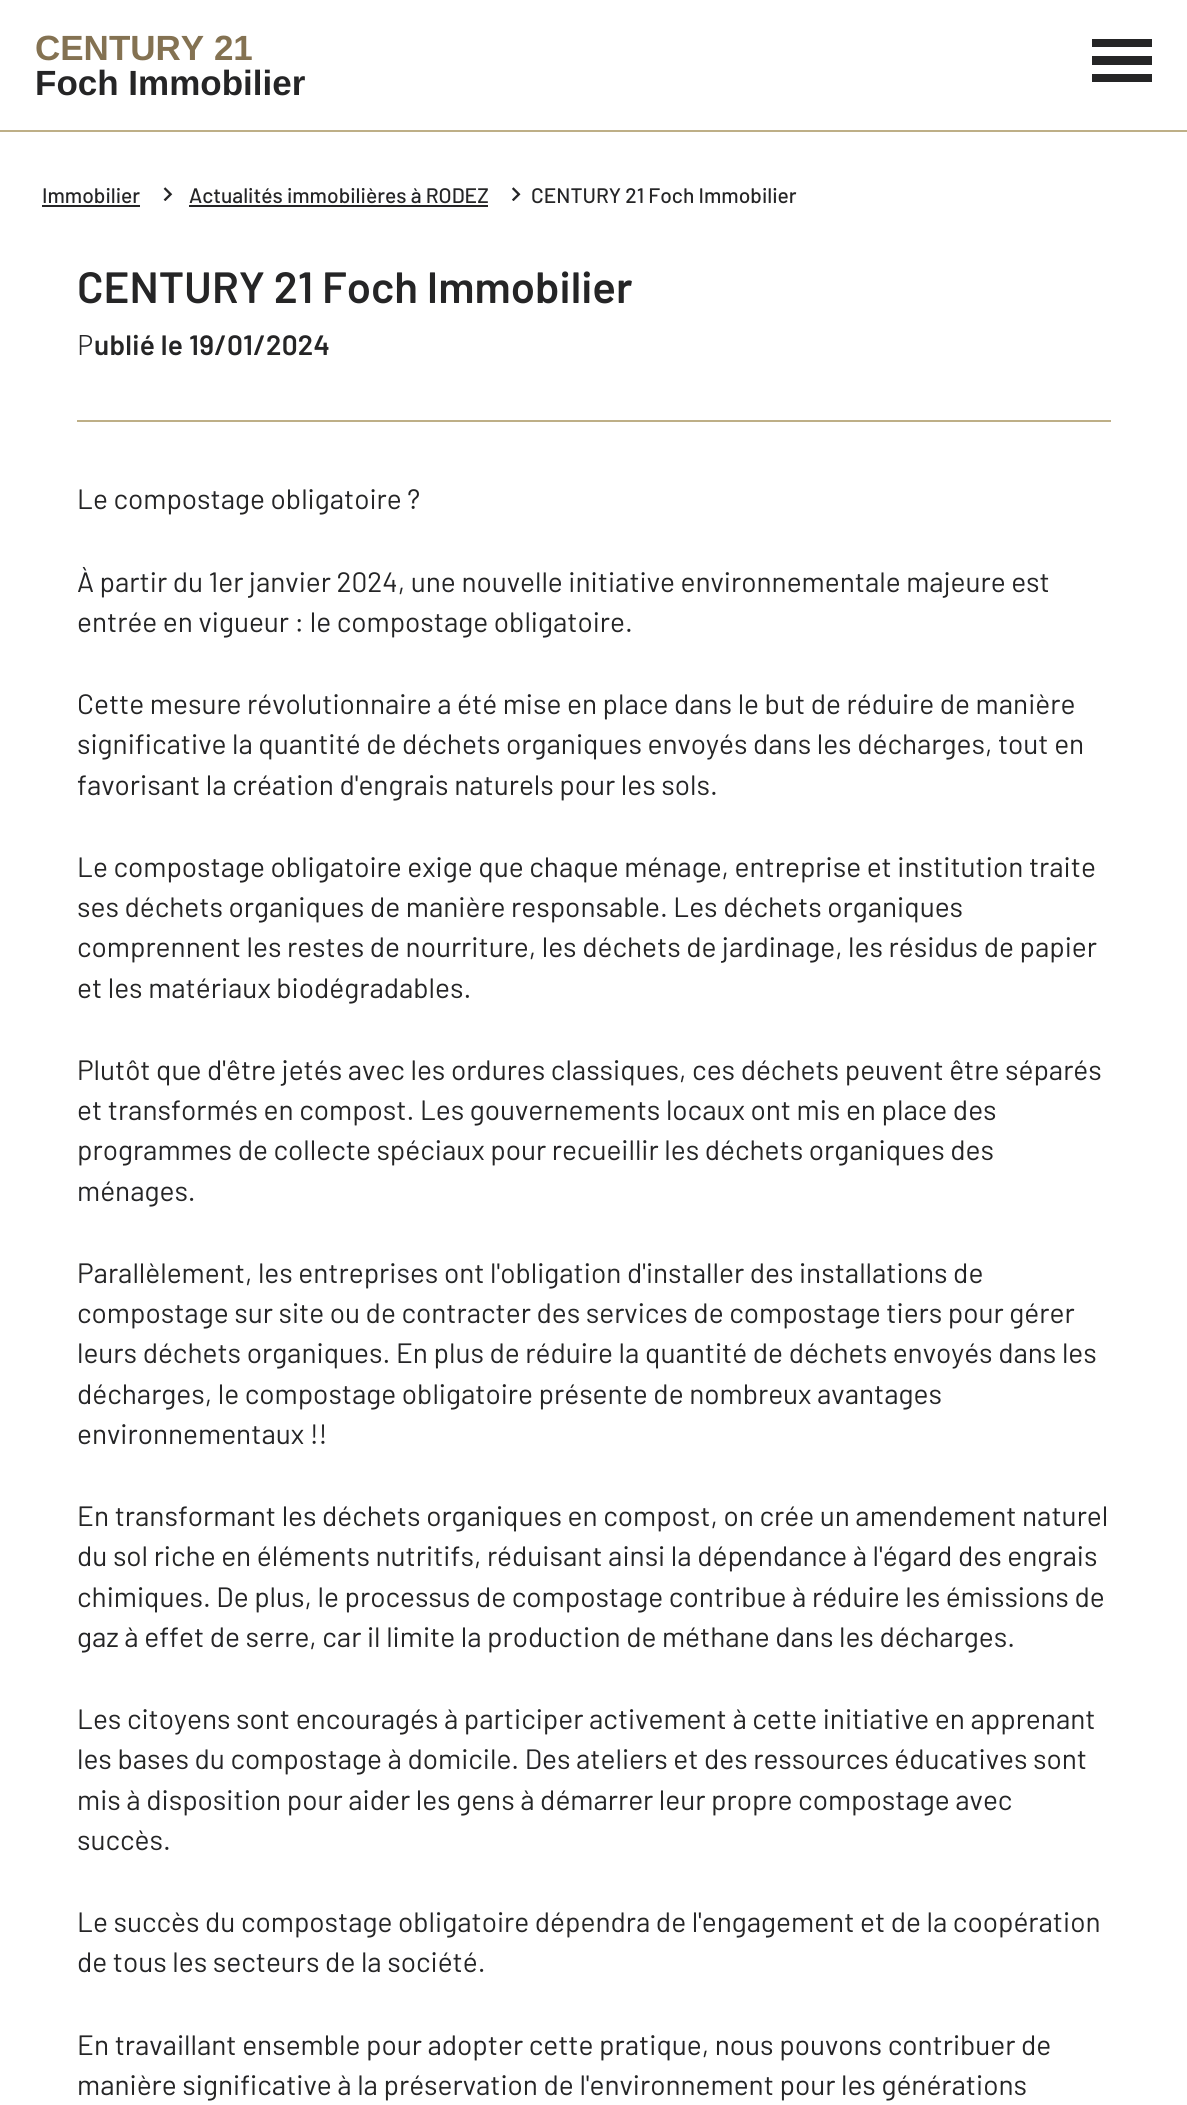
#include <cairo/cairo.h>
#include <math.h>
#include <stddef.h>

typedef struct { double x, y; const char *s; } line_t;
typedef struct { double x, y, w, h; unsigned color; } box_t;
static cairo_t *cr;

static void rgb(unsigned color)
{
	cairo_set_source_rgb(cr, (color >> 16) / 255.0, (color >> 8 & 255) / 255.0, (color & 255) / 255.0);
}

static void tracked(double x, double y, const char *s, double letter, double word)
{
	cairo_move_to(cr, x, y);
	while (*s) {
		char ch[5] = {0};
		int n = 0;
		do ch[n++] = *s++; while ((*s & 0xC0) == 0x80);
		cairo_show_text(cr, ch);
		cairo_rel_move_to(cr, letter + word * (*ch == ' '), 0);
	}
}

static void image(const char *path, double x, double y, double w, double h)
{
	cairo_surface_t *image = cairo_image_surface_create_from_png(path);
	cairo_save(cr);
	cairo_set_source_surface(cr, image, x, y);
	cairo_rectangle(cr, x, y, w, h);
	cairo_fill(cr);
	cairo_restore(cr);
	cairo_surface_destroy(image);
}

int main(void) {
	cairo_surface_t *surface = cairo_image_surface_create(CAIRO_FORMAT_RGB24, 1187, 2105);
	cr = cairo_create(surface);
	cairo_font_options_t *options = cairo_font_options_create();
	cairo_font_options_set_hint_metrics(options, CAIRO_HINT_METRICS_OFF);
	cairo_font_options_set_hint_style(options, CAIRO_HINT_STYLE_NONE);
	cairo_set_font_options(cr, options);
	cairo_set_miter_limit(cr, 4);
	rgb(0xffffff);
	cairo_paint(cr);
	{
		static const box_t items[] = {
			{0, 130, 1187, 2, 0xbeaf87},
			{1092, 74, 60, 8, 0x252526},
			{1092, 39, 60, 8, 0x252526},
			{1092, 56, 60, 9, 0x252526},
			{42, 205, 98, 2, 0x252526},
		};
		for (size_t i = 0; i < sizeof items / sizeof *items; i++) {
			rgb(items[i].color);
			cairo_rectangle(cr, items[i].x, items[i].y, items[i].w, items[i].h);
			cairo_fill(cr);
		}
	}
	image("img/1.png", 163, 187, 10, 14);
	cairo_rectangle(cr, 189, 205, 299, 2);
	cairo_fill(cr);
	image("img/2.png", 512, 187, 9, 14);
	rgb(0xbeaf87);
	cairo_rectangle(cr, 77, 420, 1034, 2);
	cairo_fill(cr);
	cairo_select_font_face(cr, "Liberation Sans", CAIRO_FONT_SLANT_NORMAL, CAIRO_FONT_WEIGHT_BOLD);
	cairo_set_font_size(cr, 35);
	rgb(0x847252);
	cairo_move_to(cr, 35, 60);
	cairo_show_text(cr, "CENTURY 21");
	rgb(0x252526);
	cairo_move_to(cr, 35, 95);
	cairo_show_text(cr, "Foch Immobilier");
	cairo_select_font_face(cr, "Barlow Medium", CAIRO_FONT_SLANT_NORMAL, CAIRO_FONT_WEIGHT_NORMAL);
	cairo_set_font_size(cr, 21);
	{
		static const line_t items[] = {
			{42, 203, "Immobilier"},
			{189, 203, "Actualités immobilières à RODEZ"},
			{531, 203, "CENTURY 21 Foch Immobilier"},
		};
		for (size_t i = 0; i < sizeof items / sizeof *items; i++) {
			cairo_move_to(cr, items[i].x, items[i].y);
			cairo_show_text(cr, items[i].s);
		}
	}
	cairo_select_font_face(cr, "Barlow SemiBold", CAIRO_FONT_SLANT_NORMAL, CAIRO_FONT_WEIGHT_NORMAL);
	cairo_set_font_size(cr, 43.75);
	cairo_move_to(cr, 77, 303);
	cairo_show_text(cr, "CENTURY 21 Foch Immobilier");
	cairo_select_font_face(cr, "Noto Sans Light", CAIRO_FONT_SLANT_NORMAL, CAIRO_FONT_WEIGHT_NORMAL);
	cairo_set_font_size(cr, 28);
	tracked(77, 355, "P", 0.25, 0);
	cairo_select_font_face(cr, "Barlow SemiBold", CAIRO_FONT_SLANT_NORMAL, CAIRO_FONT_WEIGHT_NORMAL);
	tracked(94, 355, "ublié le 19/01/2024", 0.25, 0);
	cairo_select_font_face(cr, "Barlow", CAIRO_FONT_SLANT_NORMAL, CAIRO_FONT_WEIGHT_NORMAL);
	{
		static const line_t items[] = {
			{77, 509, "Le compostage obligatoire ?"},
			{77, 592, "À partir du 1er janvier 2024, une nouvelle initiative environnementale majeure est"},
			{77, 632, "entrée en vigueur : le compostage obligatoire."},
			{77, 714, "Cette mesure révolutionnaire a été mise en place dans le but de réduire de manière"},
			{77, 754, "significative la quantité de déchets organiques envoyés dans les décharges, tout en"},
			{77, 795, "favorisant la création d'engrais naturels pour les sols."},
			{77, 877, "Le compostage obligatoire exige que chaque ménage, entreprise et institution traite"},
			{77, 917, "ses déchets organiques de manière responsable. Les déchets organiques"},
			{77, 957, "comprennent les restes de nourriture, les déchets de jardinage, les résidus de papier"},
			{77, 998, "et les matériaux biodégradables."},
			{77, 1080, "Plutôt que d'être jetés avec les ordures classiques, ces déchets peuvent être séparés"},
			{77, 1120, "et transformés en compost. Les gouvernements locaux ont mis en place des"},
			{77, 1160, "programmes de collecte spéciaux pour recueillir les déchets organiques des"},
			{77, 1201, "ménages."},
			{77, 1283, "Parallèlement, les entreprises ont l'obligation d'installer des installations de"},
			{77, 1323, "compostage sur site ou de contracter des services de compostage tiers pour gérer"},
			{77, 1363, "leurs déchets organiques. En plus de réduire la quantité de déchets envoyés dans les"},
			{77, 1404, "décharges, le compostage obligatoire présente de nombreux avantages"},
			{77, 1444, "environnementaux !!"},
			{77, 1526, "En transformant les déchets organiques en compost, on crée un amendement naturel"},
			{77, 1566, "du sol riche en éléments nutritifs, réduisant ainsi la dépendance à l'égard des engrais"},
			{77, 1607, "chimiques. De plus, le processus de compostage contribue à réduire les émissions de"},
			{77, 1647, "gaz à effet de serre, car il limite la production de méthane dans les décharges."},
			{77, 1729, "Les citoyens sont encouragés à participer activement à cette initiative en apprenant"},
			{77, 1769, "les bases du compostage à domicile. Des ateliers et des ressources éducatives sont"},
			{77, 1810, "mis à disposition pour aider les gens à démarrer leur propre compostage avec"},
			{77, 1850, "succès."},
			{77, 1932, "Le succès du compostage obligatoire dépendra de l'engagement et de la coopération"},
			{77, 1972, "de tous les secteurs de la société."},
			{77, 2055, "En travaillant ensemble pour adopter cette pratique, nous pouvons contribuer de"},
			{77, 2095, "manière significative à la préservation de l'environnement pour les générations"},
		};
		for (size_t i = 0; i < sizeof items / sizeof *items; i++) {
			cairo_move_to(cr, items[i].x, items[i].y);
			cairo_show_text(cr, items[i].s);
		}
	}
	cairo_surface_write_to_png(surface, "page.png");
	cairo_font_options_destroy(options);
	cairo_destroy(cr);
	cairo_surface_destroy(surface);
	return 0;
}
